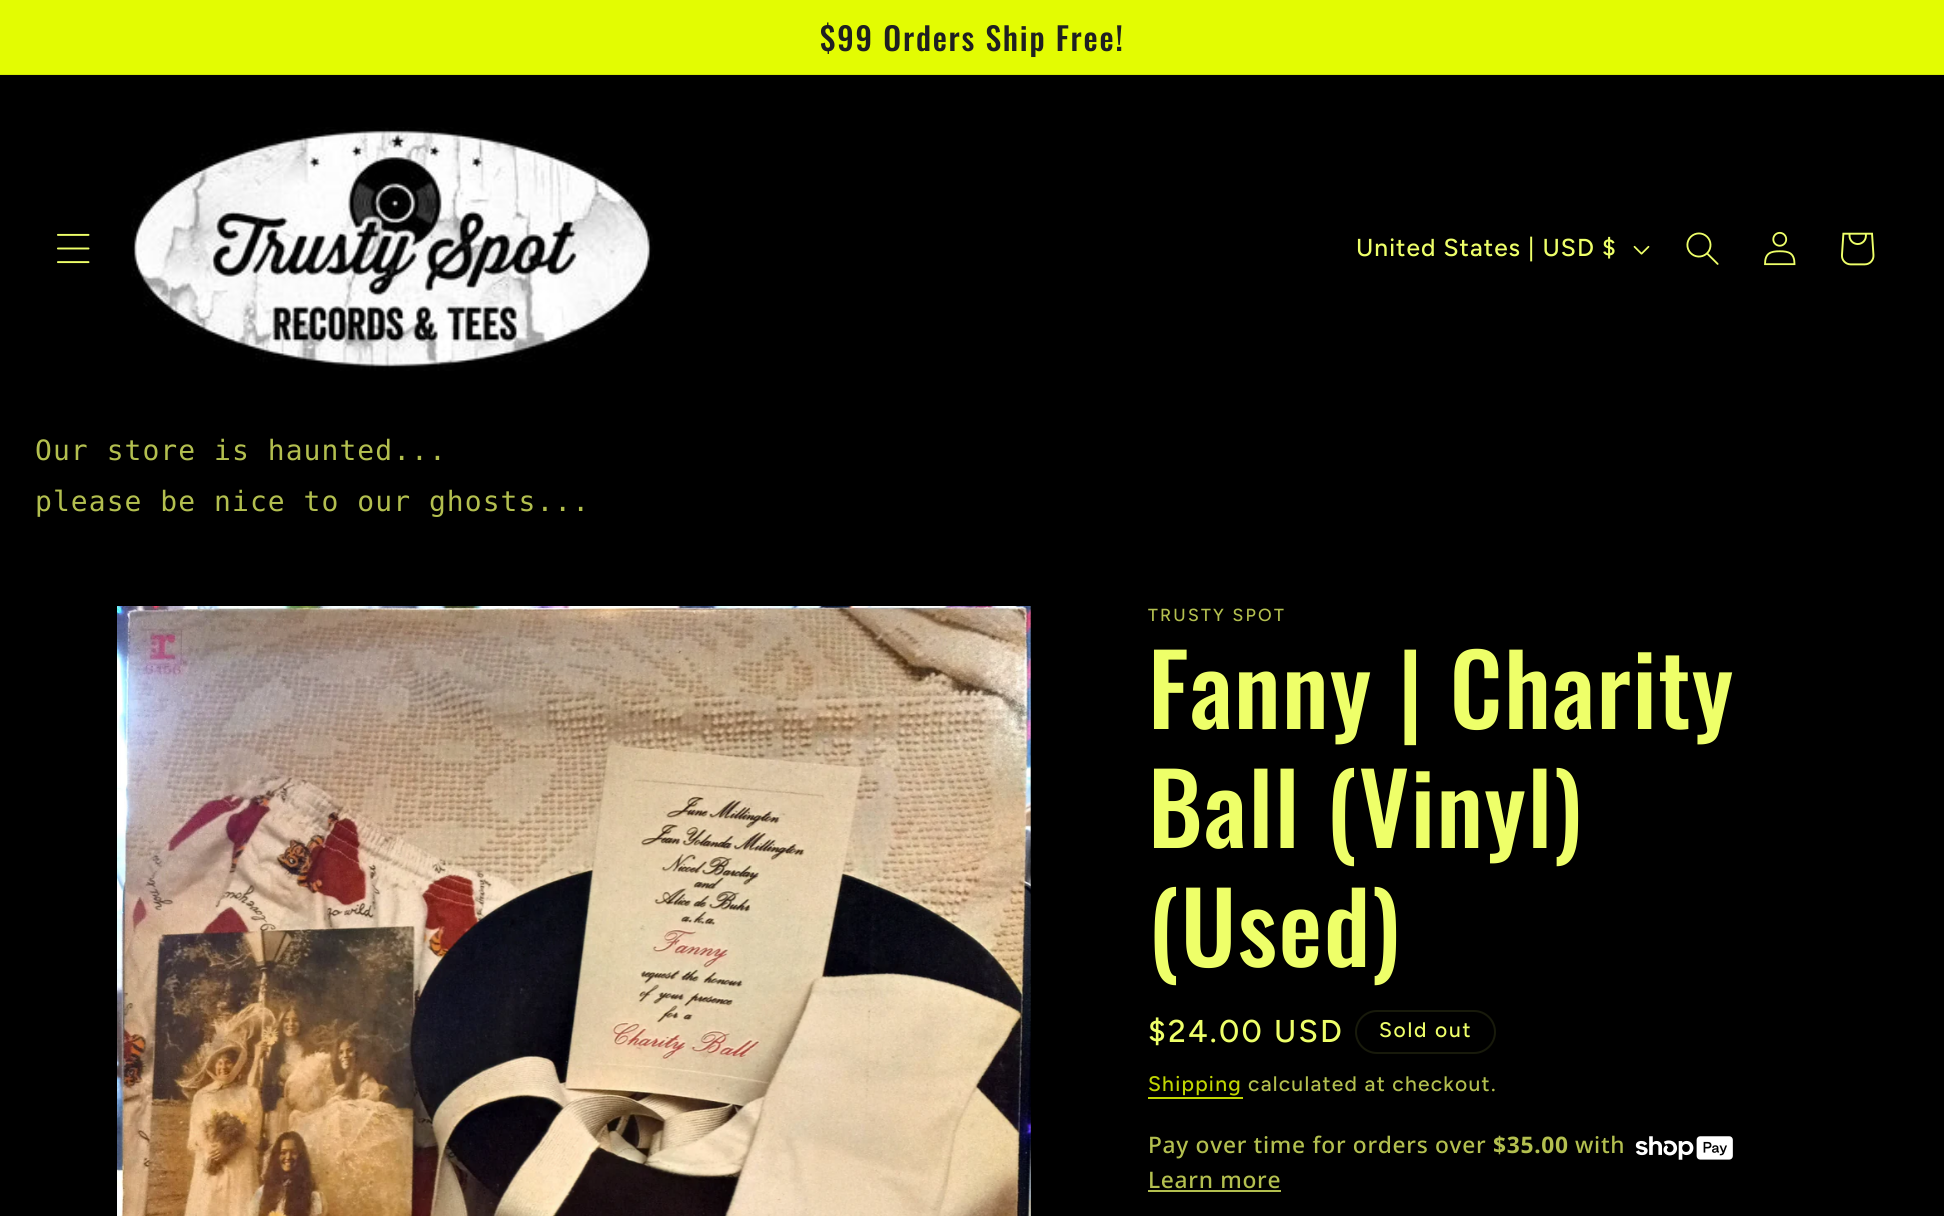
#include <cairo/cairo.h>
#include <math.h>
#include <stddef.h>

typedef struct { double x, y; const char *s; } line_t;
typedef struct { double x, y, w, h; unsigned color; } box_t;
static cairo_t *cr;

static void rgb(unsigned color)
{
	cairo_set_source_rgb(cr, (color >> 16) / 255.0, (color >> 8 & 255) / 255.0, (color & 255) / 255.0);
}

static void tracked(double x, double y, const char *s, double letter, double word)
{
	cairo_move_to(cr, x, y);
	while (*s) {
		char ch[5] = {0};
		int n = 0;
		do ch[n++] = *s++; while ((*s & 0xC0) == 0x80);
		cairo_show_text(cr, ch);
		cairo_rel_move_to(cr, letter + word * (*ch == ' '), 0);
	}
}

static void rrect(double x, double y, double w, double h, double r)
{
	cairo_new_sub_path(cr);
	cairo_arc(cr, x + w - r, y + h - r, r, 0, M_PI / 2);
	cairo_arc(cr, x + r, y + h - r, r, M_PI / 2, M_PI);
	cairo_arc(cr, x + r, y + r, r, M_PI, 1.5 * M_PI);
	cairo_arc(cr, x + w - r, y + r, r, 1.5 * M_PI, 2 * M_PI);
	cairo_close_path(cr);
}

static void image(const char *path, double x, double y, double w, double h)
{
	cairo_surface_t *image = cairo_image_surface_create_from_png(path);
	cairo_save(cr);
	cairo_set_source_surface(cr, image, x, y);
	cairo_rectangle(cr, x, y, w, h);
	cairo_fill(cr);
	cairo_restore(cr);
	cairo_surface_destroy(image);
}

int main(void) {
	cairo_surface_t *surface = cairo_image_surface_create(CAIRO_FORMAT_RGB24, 1944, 1216);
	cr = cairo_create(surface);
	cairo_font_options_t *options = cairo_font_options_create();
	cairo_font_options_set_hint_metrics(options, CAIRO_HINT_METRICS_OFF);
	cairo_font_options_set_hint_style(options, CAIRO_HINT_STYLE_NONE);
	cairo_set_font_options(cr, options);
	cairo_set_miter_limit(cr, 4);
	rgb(0x000000);
	cairo_paint(cr);
	{
		static const box_t items[] = {
			{0, 75, 1944, 1, 0x020203},
			{0, 0, 1944, 74, 0xe3fc02},
			{0, 74, 1944, 1, 0xd3ea04},
		};
		for (size_t i = 0; i < sizeof items / sizeof *items; i++) {
			rgb(items[i].color);
			cairo_rectangle(cr, items[i].x, items[i].y, items[i].w, items[i].h);
			cairo_fill(cr);
		}
	}
	image("img/1.png", 57, 233, 33, 31);
	image("img/2.png", 131, 127, 523, 244);
	image("img/3.png", 1633, 245, 17, 10);
	image("img/4.png", 1686, 232, 33, 33);
	image("img/5.png", 1764, 231, 32, 35);
	image("img/6.png", 1841, 232, 34, 34);
	image("img/7.png", 117, 606, 914, 610);
	rrect(1356, 1011, 139, 42, 21);
	rgb(0x181a0b);
	cairo_stroke(cr);
	rgb(0xc1d602);
	cairo_rectangle(cr, 1148, 1097, 95, 2);
	cairo_fill(cr);
	image("img/8.png", 1635, 1136, 98, 24);
	rgb(0xb3bf4f);
	cairo_rectangle(cr, 1148, 1190, 133, 2);
	cairo_fill(cr);
	cairo_select_font_face(cr, "Oswald Medium", CAIRO_FONT_SLANT_NORMAL, CAIRO_FONT_WEIGHT_NORMAL);
	cairo_set_font_size(cr, 31.75);
	rgb(0x1f1f21);
	tracked(820, 51, "$99 Orders Ship Free!", 1.75, 0);
	cairo_select_font_face(cr, "Figtree Medium", CAIRO_FONT_SLANT_NORMAL, CAIRO_FONT_WEIGHT_NORMAL);
	cairo_set_font_size(cr, 24.5);
	rgb(0xeeff69);
	tracked(1356, 256, "United States | USD $", 1.05, 0);
	cairo_select_font_face(cr, "DejaVu Sans Mono", CAIRO_FONT_SLANT_NORMAL, CAIRO_FONT_WEIGHT_NORMAL);
	cairo_set_font_size(cr, 28);
	rgb(0xb3bf4f);
	tracked(35, 460, "Our store is haunted...", 1.05, 0);
	tracked(35, 511, "please be nice to our ghosts...", 1.05, 0);
	cairo_select_font_face(cr, "Figtree Medium", CAIRO_FONT_SLANT_NORMAL, CAIRO_FONT_WEIGHT_NORMAL);
	cairo_set_font_size(cr, 17.5);
	tracked(1148, 621, "TRUSTY SPOT", 2.25, 0);
	cairo_select_font_face(cr, "Oswald Medium", CAIRO_FONT_SLANT_NORMAL, CAIRO_FONT_WEIGHT_NORMAL);
	cairo_set_font_size(cr, 98);
	rgb(0xeeff69);
	{
		static const line_t items[] = {
			{1148, 729, "Fanny | Charity"},
			{1148, 848, "Ball (Vinyl)"},
			{1148, 967, "(Used)"},
		};
		for (size_t i = 0; i < sizeof items / sizeof *items; i++) {
			tracked(items[i].x, items[i].y, items[i].s, 1.5, 0);
		}
	}
	cairo_select_font_face(cr, "Figtree Medium", CAIRO_FONT_SLANT_NORMAL, CAIRO_FONT_WEIGHT_NORMAL);
	cairo_set_font_size(cr, 31.5);
	tracked(1148, 1042, "$24.00 USD", 2.25, 0);
	cairo_set_font_size(cr, 21);
	tracked(1379, 1037, "Sold out", 1.75, 0);
	rgb(0xc1d602);
	tracked(1148, 1091, "Shipping", 1.25, 0);
	rgb(0xb3bf4f);
	tracked(1248, 1091, "calculated at checkout.", 1.25, 0);
	cairo_select_font_face(cr, "Noto Sans Medium", CAIRO_FONT_SLANT_NORMAL, CAIRO_FONT_WEIGHT_NORMAL);
	cairo_set_font_size(cr, 22.75);
	tracked(1148, 1153, "Pay over time for orders over", 0.7, 0);
	cairo_select_font_face(cr, "Noto Sans", CAIRO_FONT_SLANT_NORMAL, CAIRO_FONT_WEIGHT_BOLD);
	tracked(1493, 1153, "$35.00", 0.7, 0);
	cairo_select_font_face(cr, "Noto Sans Medium", CAIRO_FONT_SLANT_NORMAL, CAIRO_FONT_WEIGHT_NORMAL);
	tracked(1575, 1153, "with", 0.7, 0);
	tracked(1148, 1188, "Learn more", 0.7, 0);
	cairo_surface_write_to_png(surface, "page.png");
	cairo_font_options_destroy(options);
	cairo_destroy(cr);
	cairo_surface_destroy(surface);
	return 0;
}
